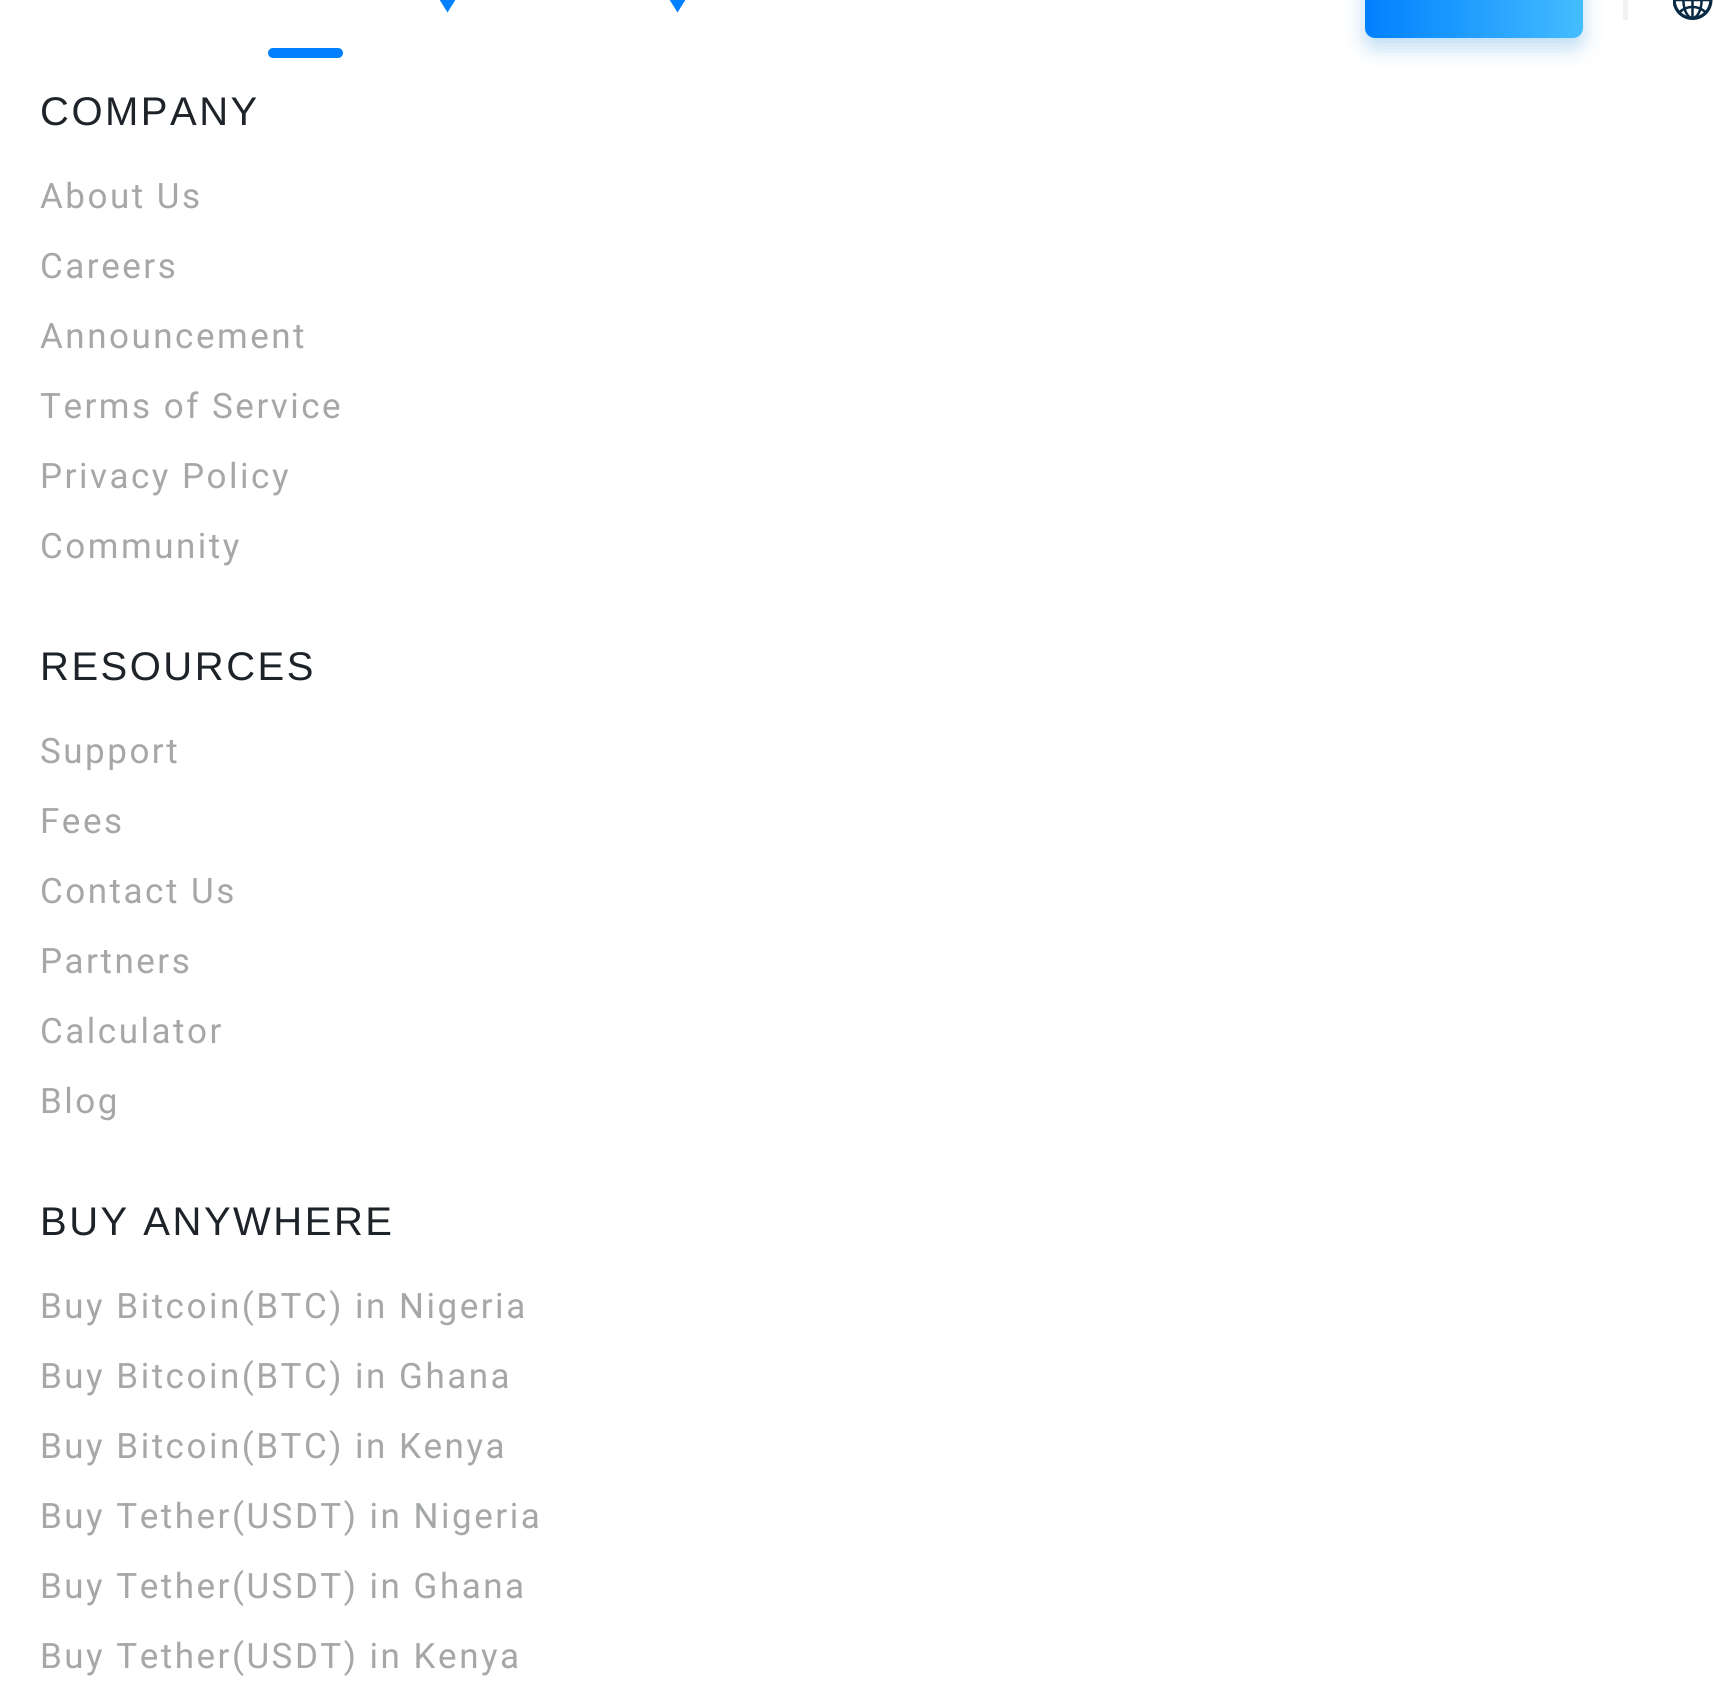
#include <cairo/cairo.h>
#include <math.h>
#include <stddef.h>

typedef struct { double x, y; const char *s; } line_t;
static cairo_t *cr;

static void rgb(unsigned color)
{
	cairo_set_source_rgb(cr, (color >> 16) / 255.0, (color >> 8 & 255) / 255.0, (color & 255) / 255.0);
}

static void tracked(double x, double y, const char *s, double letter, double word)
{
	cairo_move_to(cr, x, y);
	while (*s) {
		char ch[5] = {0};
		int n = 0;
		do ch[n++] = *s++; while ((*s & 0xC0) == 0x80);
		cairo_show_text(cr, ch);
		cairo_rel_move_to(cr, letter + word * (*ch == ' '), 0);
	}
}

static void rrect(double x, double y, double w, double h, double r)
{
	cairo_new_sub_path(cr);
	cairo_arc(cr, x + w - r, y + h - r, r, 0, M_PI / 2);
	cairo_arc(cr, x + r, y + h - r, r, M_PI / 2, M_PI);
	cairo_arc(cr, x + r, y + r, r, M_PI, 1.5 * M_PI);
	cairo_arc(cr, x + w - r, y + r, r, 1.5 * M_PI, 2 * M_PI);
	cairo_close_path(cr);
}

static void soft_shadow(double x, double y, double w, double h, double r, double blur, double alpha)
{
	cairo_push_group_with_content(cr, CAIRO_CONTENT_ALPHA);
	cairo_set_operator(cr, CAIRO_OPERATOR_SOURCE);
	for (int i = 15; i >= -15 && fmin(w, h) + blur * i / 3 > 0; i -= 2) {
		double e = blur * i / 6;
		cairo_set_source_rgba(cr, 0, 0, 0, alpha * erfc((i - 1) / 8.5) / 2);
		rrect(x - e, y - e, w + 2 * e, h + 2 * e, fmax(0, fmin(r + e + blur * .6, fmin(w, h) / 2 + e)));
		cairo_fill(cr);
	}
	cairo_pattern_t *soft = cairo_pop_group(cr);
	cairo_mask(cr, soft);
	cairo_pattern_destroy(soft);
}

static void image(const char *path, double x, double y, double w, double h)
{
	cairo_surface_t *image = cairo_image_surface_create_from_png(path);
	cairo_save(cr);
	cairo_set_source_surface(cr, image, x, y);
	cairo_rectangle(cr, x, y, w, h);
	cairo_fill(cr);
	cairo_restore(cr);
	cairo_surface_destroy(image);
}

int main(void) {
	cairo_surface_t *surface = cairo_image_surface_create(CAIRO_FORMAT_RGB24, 1714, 1690);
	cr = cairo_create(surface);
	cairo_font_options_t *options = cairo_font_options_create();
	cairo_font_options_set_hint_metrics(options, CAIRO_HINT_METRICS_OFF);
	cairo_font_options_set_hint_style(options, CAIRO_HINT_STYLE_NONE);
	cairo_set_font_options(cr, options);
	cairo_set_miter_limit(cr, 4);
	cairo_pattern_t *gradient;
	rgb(0xffffff);
	cairo_paint(cr);
	rgb(0x0080ff);
	cairo_new_path(cr);
	cairo_move_to(cr, 435, -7.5);
	cairo_line_to(cr, 460, -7.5);
	cairo_line_to(cr, 447.5, 12.5);
	cairo_close_path(cr);
	cairo_fill(cr);
	rrect(268, 48, 75, 10, 5);
	cairo_fill(cr);
	cairo_new_path(cr);
	cairo_move_to(cr, 665, -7.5);
	cairo_line_to(cr, 690, -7.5);
	cairo_line_to(cr, 677.5, 12.5);
	cairo_close_path(cr);
	cairo_fill(cr);
	rgb(0x057fd2);
	soft_shadow(1365, -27, 218, 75, 10, 10, 0.27);
	gradient = cairo_pattern_create_linear(1583, 0, 1365, 0);
	cairo_pattern_add_color_stop_rgba(gradient, 0, 0.267, 0.741, 1, 1);
	cairo_pattern_add_color_stop_rgba(gradient, 1, 0, 0.502, 1, 1);
	cairo_set_source(cr, gradient);
	cairo_pattern_destroy(gradient);
	rrect(1365, -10, 218, 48, 10);
	cairo_fill(cr);
	rgb(0xf2f2f2);
	cairo_rectangle(cr, 1623, 0, 5, 20);
	cairo_fill(cr);
	image("img/1.png", 1673, 0, 40, 20);
	cairo_select_font_face(cr, "Liberation Sans", CAIRO_FONT_SLANT_NORMAL, CAIRO_FONT_WEIGHT_NORMAL);
	cairo_set_font_size(cr, 40);
	rgb(0x1e2329);
	tracked(40, 125, "COMPANY", 2.5, 0);
	cairo_select_font_face(cr, "Roboto", CAIRO_FONT_SLANT_NORMAL, CAIRO_FONT_WEIGHT_NORMAL);
	cairo_set_font_size(cr, 35);
	rgb(0xa5a7a9);
	{
		static const line_t items[] = {
			{40, 208, "About Us"},
			{40, 278, "Careers"},
			{40, 348, "Announcement"},
			{40, 418, "Terms of Service"},
			{40, 488, "Privacy Policy"},
			{40, 558, "Community"},
		};
		for (size_t i = 0; i < sizeof items / sizeof *items; i++) {
			tracked(items[i].x, items[i].y, items[i].s, 2.5, 0);
		}
	}
	cairo_select_font_face(cr, "Liberation Sans", CAIRO_FONT_SLANT_NORMAL, CAIRO_FONT_WEIGHT_NORMAL);
	cairo_set_font_size(cr, 40);
	rgb(0x1e2329);
	tracked(40, 680, "RESOURCES", 2.5, 0);
	cairo_select_font_face(cr, "Roboto", CAIRO_FONT_SLANT_NORMAL, CAIRO_FONT_WEIGHT_NORMAL);
	cairo_set_font_size(cr, 35);
	rgb(0xa5a7a9);
	{
		static const line_t items[] = {
			{40, 763, "Support"},
			{40, 833, "Fees"},
			{40, 903, "Contact Us"},
			{40, 973, "Partners"},
			{40, 1043, "Calculator"},
			{40, 1113, "Blog"},
		};
		for (size_t i = 0; i < sizeof items / sizeof *items; i++) {
			tracked(items[i].x, items[i].y, items[i].s, 2.5, 0);
		}
	}
	cairo_select_font_face(cr, "Liberation Sans", CAIRO_FONT_SLANT_NORMAL, CAIRO_FONT_WEIGHT_NORMAL);
	cairo_set_font_size(cr, 40);
	rgb(0x1e2329);
	tracked(40, 1235, "BUY ANYWHERE", 2.5, 0);
	cairo_select_font_face(cr, "Roboto", CAIRO_FONT_SLANT_NORMAL, CAIRO_FONT_WEIGHT_NORMAL);
	cairo_set_font_size(cr, 35);
	rgb(0xa5a7a9);
	{
		static const line_t items[] = {
			{40, 1318, "Buy Bitcoin(BTC) in Nigeria"},
			{40, 1388, "Buy Bitcoin(BTC) in Ghana"},
			{40, 1458, "Buy Bitcoin(BTC) in Kenya"},
			{40, 1528, "Buy Tether(USDT) in Nigeria"},
			{40, 1598, "Buy Tether(USDT) in Ghana"},
			{40, 1668, "Buy Tether(USDT) in Kenya"},
		};
		for (size_t i = 0; i < sizeof items / sizeof *items; i++) {
			tracked(items[i].x, items[i].y, items[i].s, 2.5, 0);
		}
	}
	cairo_surface_write_to_png(surface, "page.png");
	cairo_font_options_destroy(options);
	cairo_destroy(cr);
	cairo_surface_destroy(surface);
	return 0;
}
